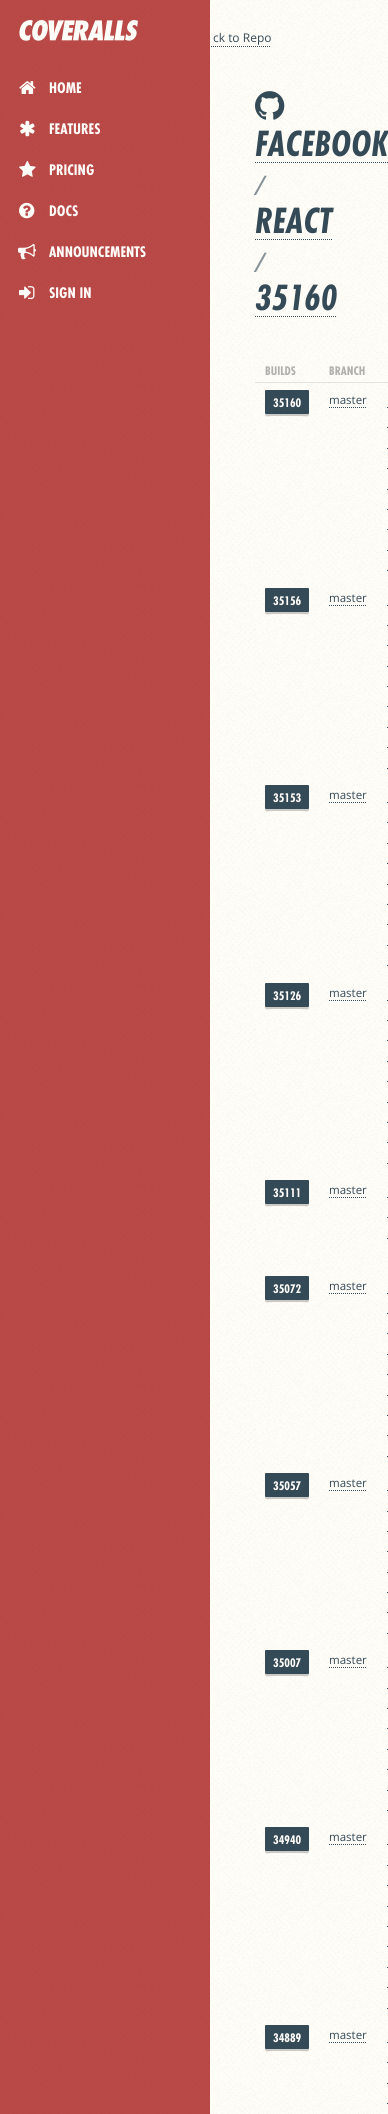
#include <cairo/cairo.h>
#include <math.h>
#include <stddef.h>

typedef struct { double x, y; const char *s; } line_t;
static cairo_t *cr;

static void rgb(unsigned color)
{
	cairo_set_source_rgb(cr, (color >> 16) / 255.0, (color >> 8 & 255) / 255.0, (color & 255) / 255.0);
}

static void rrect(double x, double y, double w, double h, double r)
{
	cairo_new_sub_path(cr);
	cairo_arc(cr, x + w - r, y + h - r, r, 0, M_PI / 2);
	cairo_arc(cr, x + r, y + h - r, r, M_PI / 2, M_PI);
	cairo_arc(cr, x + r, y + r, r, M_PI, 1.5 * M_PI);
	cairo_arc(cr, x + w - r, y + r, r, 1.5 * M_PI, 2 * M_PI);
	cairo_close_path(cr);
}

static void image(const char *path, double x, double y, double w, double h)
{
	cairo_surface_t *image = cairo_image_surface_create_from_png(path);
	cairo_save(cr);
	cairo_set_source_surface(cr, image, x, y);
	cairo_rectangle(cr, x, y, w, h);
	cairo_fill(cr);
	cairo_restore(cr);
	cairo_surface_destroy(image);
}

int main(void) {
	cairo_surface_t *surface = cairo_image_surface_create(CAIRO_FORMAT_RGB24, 388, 2114);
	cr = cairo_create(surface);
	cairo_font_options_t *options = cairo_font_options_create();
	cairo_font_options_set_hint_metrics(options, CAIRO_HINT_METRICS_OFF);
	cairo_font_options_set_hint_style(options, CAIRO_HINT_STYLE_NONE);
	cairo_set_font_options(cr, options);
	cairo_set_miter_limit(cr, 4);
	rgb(0xfefdf8);
	cairo_paint(cr);
	rgb(0xe5e4df);
	cairo_rectangle(cr, 377, 382, 11, 1);
	cairo_fill(cr);
	image("img/1.png", 210, 0, 178, 2114);
	cairo_new_path(cr);
	cairo_move_to(cr, 195, 46.5);
	cairo_line_to(cr, 271, 46.5);
	rgb(0x354a57);
	cairo_set_line_width(cr, 1);
	cairo_set_dash(cr, (double[]){1, 1}, 2, 0);
	cairo_stroke(cr);
	rgb(0xb94947);
	cairo_rectangle(cr, 0, 0, 210, 2114);
	cairo_fill(cr);
	image("img/2.png", 0, 0, 210, 2114);
	cairo_rectangle(cr, 0, 18, 210, 29);
	cairo_fill(cr);
	image("img/3.png", 19, 20, 119, 21);
	image("img/4.png", 19, 81, 17, 13);
	image("img/5.png", 20, 120, 15, 17);
	image("img/6.png", 19, 160, 17, 17);
	image("img/7.png", 19, 202, 16, 17);
	image("img/8.png", 18, 243, 18, 17);
	image("img/9.png", 19, 286, 16, 13);
	image("img/10.png", 255, 91, 30, 29);
	cairo_new_path(cr);
	cairo_move_to(cr, 255, 162.5);
	cairo_line_to(cr, 388, 162.5);
	rgb(0x354a57);
	cairo_stroke(cr);
	cairo_new_path(cr);
	cairo_move_to(cr, 255, 239.5);
	cairo_line_to(cr, 332, 239.5);
	cairo_stroke(cr);
	cairo_new_path(cr);
	cairo_move_to(cr, 255, 316.5);
	cairo_line_to(cr, 337, 316.5);
	cairo_stroke(cr);
	cairo_set_source_rgba(cr, 0, 0, 0, 0.1);
	cairo_rectangle(cr, 255, 382, 64, 1);
	cairo_fill(cr);
	cairo_rectangle(cr, 319, 382, 58, 1);
	cairo_fill(cr);
	cairo_set_source_rgba(cr, 0, 0, 0, 0.2);
	cairo_new_path(cr);
	cairo_move_to(cr, 265, 413);
	cairo_curve_to(cr, 265, 418, 267, 416, 273, 416);
	cairo_line_to(cr, 301, 416);
	cairo_curve_to(cr, 307, 416, 309, 418, 309, 413);
	cairo_line_to(cr, 308, 414);
	cairo_line_to(cr, 266, 414);
	cairo_close_path(cr);
	cairo_fill(cr);
	rgb(0x354a57);
	rrect(265, 390, 44, 24, 1);
	cairo_fill(cr);
	cairo_new_path(cr);
	cairo_move_to(cr, 329, 407.5);
	cairo_line_to(cr, 367, 407.5);
	cairo_stroke(cr);
	cairo_new_path(cr);
	cairo_move_to(cr, 387, 407.5);
	cairo_line_to(cr, 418, 407.5);
	cairo_move_to(cr, 387, 427.5);
	cairo_line_to(cr, 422, 427.5);
	cairo_move_to(cr, 387, 448.5);
	cairo_line_to(cr, 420, 448.5);
	cairo_move_to(cr, 387, 468.5);
	cairo_line_to(cr, 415, 468.5);
	cairo_stroke(cr);
	cairo_new_path(cr);
	cairo_move_to(cr, 387, 489.5);
	cairo_line_to(cr, 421, 489.5);
	cairo_move_to(cr, 387, 509.5);
	cairo_line_to(cr, 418, 509.5);
	cairo_move_to(cr, 387, 529.5);
	cairo_line_to(cr, 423, 529.5);
	cairo_move_to(cr, 387, 550.5);
	cairo_line_to(cr, 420, 550.5);
	cairo_stroke(cr);
	cairo_new_path(cr);
	cairo_move_to(cr, 387, 570.5);
	cairo_line_to(cr, 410, 570.5);
	cairo_move_to(cr, 329, 605.5);
	cairo_line_to(cr, 367, 605.5);
	cairo_stroke(cr);
	cairo_set_source_rgba(cr, 0, 0, 0, 0.2);
	cairo_new_path(cr);
	cairo_move_to(cr, 265, 611);
	cairo_curve_to(cr, 265, 616, 267, 614, 273, 614);
	cairo_line_to(cr, 301, 614);
	cairo_curve_to(cr, 307, 614, 309, 616, 309, 611);
	cairo_line_to(cr, 308, 612);
	cairo_line_to(cr, 266, 612);
	cairo_close_path(cr);
	cairo_fill(cr);
	rgb(0x354a57);
	rrect(265, 588, 44, 24, 1);
	cairo_fill(cr);
	cairo_new_path(cr);
	cairo_move_to(cr, 387, 605.5);
	cairo_line_to(cr, 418, 605.5);
	cairo_move_to(cr, 387, 625.5);
	cairo_line_to(cr, 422, 625.5);
	cairo_move_to(cr, 387, 645.5);
	cairo_line_to(cr, 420, 645.5);
	cairo_move_to(cr, 387, 666.5);
	cairo_line_to(cr, 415, 666.5);
	cairo_stroke(cr);
	cairo_new_path(cr);
	cairo_move_to(cr, 387, 686.5);
	cairo_line_to(cr, 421, 686.5);
	cairo_move_to(cr, 387, 706.5);
	cairo_line_to(cr, 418, 706.5);
	cairo_move_to(cr, 387, 727.5);
	cairo_line_to(cr, 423, 727.5);
	cairo_move_to(cr, 387, 747.5);
	cairo_line_to(cr, 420, 747.5);
	cairo_stroke(cr);
	cairo_new_path(cr);
	cairo_move_to(cr, 387, 768.5);
	cairo_line_to(cr, 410, 768.5);
	cairo_move_to(cr, 329, 802.5);
	cairo_line_to(cr, 367, 802.5);
	cairo_stroke(cr);
	cairo_set_source_rgba(cr, 0, 0, 0, 0.2);
	cairo_new_path(cr);
	cairo_move_to(cr, 265, 808);
	cairo_curve_to(cr, 265, 813, 267, 811, 273, 811);
	cairo_line_to(cr, 301, 811);
	cairo_curve_to(cr, 307, 811, 309, 813, 309, 808);
	cairo_line_to(cr, 308, 809);
	cairo_line_to(cr, 266, 809);
	cairo_close_path(cr);
	cairo_fill(cr);
	rgb(0x354a57);
	rrect(265, 785, 44, 24, 1);
	cairo_fill(cr);
	cairo_new_path(cr);
	cairo_move_to(cr, 387, 802.5);
	cairo_line_to(cr, 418, 802.5);
	cairo_move_to(cr, 387, 822.5);
	cairo_line_to(cr, 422, 822.5);
	cairo_move_to(cr, 387, 843.5);
	cairo_line_to(cr, 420, 843.5);
	cairo_move_to(cr, 387, 863.5);
	cairo_line_to(cr, 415, 863.5);
	cairo_stroke(cr);
	cairo_new_path(cr);
	cairo_move_to(cr, 387, 884.5);
	cairo_line_to(cr, 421, 884.5);
	cairo_move_to(cr, 387, 904.5);
	cairo_line_to(cr, 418, 904.5);
	cairo_move_to(cr, 387, 924.5);
	cairo_line_to(cr, 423, 924.5);
	cairo_move_to(cr, 387, 945.5);
	cairo_line_to(cr, 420, 945.5);
	cairo_stroke(cr);
	cairo_new_path(cr);
	cairo_move_to(cr, 387, 965.5);
	cairo_line_to(cr, 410, 965.5);
	cairo_move_to(cr, 329, 1000.5);
	cairo_line_to(cr, 367, 1000.5);
	cairo_stroke(cr);
	cairo_set_source_rgba(cr, 0, 0, 0, 0.2);
	cairo_new_path(cr);
	cairo_move_to(cr, 265, 1006);
	cairo_curve_to(cr, 265, 1011, 267, 1009, 273, 1009);
	cairo_line_to(cr, 301, 1009);
	cairo_curve_to(cr, 307, 1009, 309, 1011, 309, 1006);
	cairo_line_to(cr, 308, 1007);
	cairo_line_to(cr, 266, 1007);
	cairo_close_path(cr);
	cairo_fill(cr);
	rgb(0x354a57);
	rrect(265, 983, 44, 24, 1);
	cairo_fill(cr);
	cairo_new_path(cr);
	cairo_move_to(cr, 387, 1000.5);
	cairo_line_to(cr, 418, 1000.5);
	cairo_move_to(cr, 387, 1020.5);
	cairo_line_to(cr, 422, 1020.5);
	cairo_move_to(cr, 387, 1040.5);
	cairo_line_to(cr, 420, 1040.5);
	cairo_move_to(cr, 387, 1061.5);
	cairo_line_to(cr, 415, 1061.5);
	cairo_stroke(cr);
	cairo_new_path(cr);
	cairo_move_to(cr, 387, 1081.5);
	cairo_line_to(cr, 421, 1081.5);
	cairo_move_to(cr, 387, 1102.5);
	cairo_line_to(cr, 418, 1102.5);
	cairo_move_to(cr, 387, 1122.5);
	cairo_line_to(cr, 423, 1122.5);
	cairo_move_to(cr, 387, 1142.5);
	cairo_line_to(cr, 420, 1142.5);
	cairo_stroke(cr);
	cairo_new_path(cr);
	cairo_move_to(cr, 387, 1163.5);
	cairo_line_to(cr, 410, 1163.5);
	cairo_move_to(cr, 329, 1197.5);
	cairo_line_to(cr, 367, 1197.5);
	cairo_stroke(cr);
	cairo_set_source_rgba(cr, 0, 0, 0, 0.2);
	cairo_new_path(cr);
	cairo_move_to(cr, 265, 1203);
	cairo_curve_to(cr, 265, 1208, 267, 1206, 273, 1206);
	cairo_line_to(cr, 301, 1206);
	cairo_curve_to(cr, 307, 1206, 309, 1208, 309, 1203);
	cairo_line_to(cr, 308, 1204);
	cairo_line_to(cr, 266, 1204);
	cairo_close_path(cr);
	cairo_fill(cr);
	rgb(0x354a57);
	rrect(265, 1180, 44, 24, 1);
	cairo_fill(cr);
	cairo_new_path(cr);
	cairo_move_to(cr, 387, 1197.5);
	cairo_line_to(cr, 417, 1197.5);
	cairo_move_to(cr, 387, 1217.5);
	cairo_line_to(cr, 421, 1217.5);
	cairo_move_to(cr, 387, 1238.5);
	cairo_line_to(cr, 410, 1238.5);
	cairo_stroke(cr);
	cairo_set_source_rgba(cr, 0, 0, 0, 0.2);
	cairo_new_path(cr);
	cairo_move_to(cr, 265, 1299);
	cairo_curve_to(cr, 265, 1304, 267, 1302, 273, 1302);
	cairo_line_to(cr, 301, 1302);
	cairo_curve_to(cr, 307, 1302, 309, 1304, 309, 1299);
	cairo_line_to(cr, 308, 1300);
	cairo_line_to(cr, 266, 1300);
	cairo_close_path(cr);
	cairo_fill(cr);
	rgb(0x354a57);
	rrect(265, 1276, 44, 24, 1);
	cairo_fill(cr);
	cairo_new_path(cr);
	cairo_move_to(cr, 329, 1293.5);
	cairo_line_to(cr, 367, 1293.5);
	cairo_stroke(cr);
	cairo_new_path(cr);
	cairo_move_to(cr, 387, 1293.5);
	cairo_line_to(cr, 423, 1293.5);
	cairo_move_to(cr, 387, 1313.5);
	cairo_line_to(cr, 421, 1313.5);
	cairo_move_to(cr, 387, 1333.5);
	cairo_line_to(cr, 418, 1333.5);
	cairo_move_to(cr, 387, 1354.5);
	cairo_line_to(cr, 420, 1354.5);
	cairo_stroke(cr);
	cairo_new_path(cr);
	cairo_move_to(cr, 387, 1374.5);
	cairo_line_to(cr, 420, 1374.5);
	cairo_move_to(cr, 387, 1395.5);
	cairo_line_to(cr, 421, 1395.5);
	cairo_move_to(cr, 387, 1415.5);
	cairo_line_to(cr, 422, 1415.5);
	cairo_move_to(cr, 387, 1435.5);
	cairo_line_to(cr, 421, 1435.5);
	cairo_stroke(cr);
	cairo_new_path(cr);
	cairo_move_to(cr, 387, 1456.5);
	cairo_line_to(cr, 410, 1456.5);
	cairo_move_to(cr, 329, 1490.5);
	cairo_line_to(cr, 367, 1490.5);
	cairo_stroke(cr);
	cairo_set_source_rgba(cr, 0, 0, 0, 0.2);
	cairo_new_path(cr);
	cairo_move_to(cr, 265, 1496);
	cairo_curve_to(cr, 265, 1501, 267, 1499, 273, 1499);
	cairo_line_to(cr, 301, 1499);
	cairo_curve_to(cr, 307, 1499, 309, 1501, 309, 1496);
	cairo_line_to(cr, 308, 1497);
	cairo_line_to(cr, 266, 1497);
	cairo_close_path(cr);
	cairo_fill(cr);
	rgb(0x354a57);
	rrect(265, 1473, 44, 24, 1);
	cairo_fill(cr);
	cairo_new_path(cr);
	cairo_move_to(cr, 387, 1490.5);
	cairo_line_to(cr, 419, 1490.5);
	cairo_move_to(cr, 387, 1511.5);
	cairo_line_to(cr, 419, 1511.5);
	cairo_move_to(cr, 387, 1531.5);
	cairo_line_to(cr, 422, 1531.5);
	cairo_move_to(cr, 387, 1551.5);
	cairo_line_to(cr, 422, 1551.5);
	cairo_stroke(cr);
	cairo_new_path(cr);
	cairo_move_to(cr, 387, 1572.5);
	cairo_line_to(cr, 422, 1572.5);
	cairo_move_to(cr, 387, 1592.5);
	cairo_line_to(cr, 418, 1592.5);
	cairo_move_to(cr, 387, 1612.5);
	cairo_line_to(cr, 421, 1612.5);
	cairo_move_to(cr, 387, 1633.5);
	cairo_line_to(cr, 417, 1633.5);
	cairo_stroke(cr);
	cairo_set_source_rgba(cr, 0, 0, 0, 0.2);
	cairo_new_path(cr);
	cairo_move_to(cr, 265, 1673);
	cairo_curve_to(cr, 265, 1678, 267, 1676, 273, 1676);
	cairo_line_to(cr, 301, 1676);
	cairo_curve_to(cr, 307, 1676, 309, 1678, 309, 1673);
	cairo_line_to(cr, 308, 1674);
	cairo_line_to(cr, 266, 1674);
	cairo_close_path(cr);
	cairo_fill(cr);
	rgb(0x354a57);
	rrect(265, 1650, 44, 24, 1);
	cairo_fill(cr);
	cairo_new_path(cr);
	cairo_move_to(cr, 329, 1667.5);
	cairo_line_to(cr, 367, 1667.5);
	cairo_stroke(cr);
	cairo_new_path(cr);
	cairo_move_to(cr, 387, 1667.5);
	cairo_line_to(cr, 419, 1667.5);
	cairo_move_to(cr, 387, 1688.5);
	cairo_line_to(cr, 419, 1688.5);
	cairo_move_to(cr, 387, 1708.5);
	cairo_line_to(cr, 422, 1708.5);
	cairo_move_to(cr, 387, 1728.5);
	cairo_line_to(cr, 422, 1728.5);
	cairo_stroke(cr);
	cairo_new_path(cr);
	cairo_move_to(cr, 387, 1749.5);
	cairo_line_to(cr, 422, 1749.5);
	cairo_move_to(cr, 387, 1769.5);
	cairo_line_to(cr, 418, 1769.5);
	cairo_move_to(cr, 387, 1790.5);
	cairo_line_to(cr, 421, 1790.5);
	cairo_move_to(cr, 387, 1810.5);
	cairo_line_to(cr, 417, 1810.5);
	cairo_stroke(cr);
	cairo_set_source_rgba(cr, 0, 0, 0, 0.2);
	cairo_new_path(cr);
	cairo_move_to(cr, 265, 1850);
	cairo_curve_to(cr, 265, 1855, 267, 1853, 273, 1853);
	cairo_line_to(cr, 301, 1853);
	cairo_curve_to(cr, 307, 1853, 309, 1855, 309, 1850);
	cairo_line_to(cr, 308, 1851);
	cairo_line_to(cr, 266, 1851);
	cairo_close_path(cr);
	cairo_fill(cr);
	rgb(0x354a57);
	rrect(265, 1827, 44, 24, 1);
	cairo_fill(cr);
	cairo_new_path(cr);
	cairo_move_to(cr, 329, 1844.5);
	cairo_line_to(cr, 367, 1844.5);
	cairo_stroke(cr);
	cairo_new_path(cr);
	cairo_move_to(cr, 387, 1844.5);
	cairo_line_to(cr, 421, 1844.5);
	cairo_move_to(cr, 387, 1865.5);
	cairo_line_to(cr, 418, 1865.5);
	cairo_move_to(cr, 387, 1885.5);
	cairo_line_to(cr, 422, 1885.5);
	cairo_move_to(cr, 387, 1906.5);
	cairo_line_to(cr, 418, 1906.5);
	cairo_stroke(cr);
	cairo_new_path(cr);
	cairo_move_to(cr, 387, 1926.5);
	cairo_line_to(cr, 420, 1926.5);
	cairo_move_to(cr, 387, 1946.5);
	cairo_line_to(cr, 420, 1946.5);
	cairo_move_to(cr, 387, 1967.5);
	cairo_line_to(cr, 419, 1967.5);
	cairo_move_to(cr, 387, 1987.5);
	cairo_line_to(cr, 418, 1987.5);
	cairo_stroke(cr);
	cairo_new_path(cr);
	cairo_move_to(cr, 387, 2008.5);
	cairo_line_to(cr, 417, 2008.5);
	cairo_move_to(cr, 329, 2042.5);
	cairo_line_to(cr, 367, 2042.5);
	cairo_stroke(cr);
	cairo_set_source_rgba(cr, 0, 0, 0, 0.2);
	cairo_new_path(cr);
	cairo_move_to(cr, 265, 2048);
	cairo_curve_to(cr, 265, 2053, 267, 2051, 273, 2051);
	cairo_line_to(cr, 301, 2051);
	cairo_curve_to(cr, 307, 2051, 309, 2053, 309, 2048);
	cairo_line_to(cr, 308, 2049);
	cairo_line_to(cr, 266, 2049);
	cairo_close_path(cr);
	cairo_fill(cr);
	rgb(0x354a57);
	rrect(265, 2025, 44, 24, 1);
	cairo_fill(cr);
	cairo_new_path(cr);
	cairo_move_to(cr, 387, 2042.5);
	cairo_line_to(cr, 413, 2042.5);
	cairo_move_to(cr, 387, 2062.5);
	cairo_line_to(cr, 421, 2062.5);
	cairo_move_to(cr, 387, 2083.5);
	cairo_line_to(cr, 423, 2083.5);
	cairo_move_to(cr, 387, 2103.5);
	cairo_line_to(cr, 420, 2103.5);
	cairo_stroke(cr);
	cairo_select_font_face(cr, "Open Sans", CAIRO_FONT_SLANT_NORMAL, CAIRO_FONT_WEIGHT_NORMAL);
	cairo_set_font_size(cr, 12);
	cairo_move_to(cr, 213, 42);
	cairo_show_text(cr, "ck to Repo");
	cairo_select_font_face(cr, "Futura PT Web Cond", CAIRO_FONT_SLANT_NORMAL, CAIRO_FONT_WEIGHT_BOLD);
	cairo_set_font_size(cr, 16);
	rgb(0xfffdfa);
	{
		static const line_t items[] = {
			{49, 93, "HOME"},
			{49, 134, "FEATURES"},
			{49, 175, "PRICING"},
			{49, 216, "DOCS"},
			{49, 257, "ANNOUNCEMENTS"},
			{49, 298, "SIGN IN"},
		};
		for (size_t i = 0; i < sizeof items / sizeof *items; i++) {
			cairo_move_to(cr, items[i].x, items[i].y);
			cairo_show_text(cr, items[i].s);
		}
	}
	cairo_select_font_face(cr, "Futura PT Web Cond", CAIRO_FONT_SLANT_ITALIC, CAIRO_FONT_WEIGHT_BOLD);
	cairo_set_font_size(cr, 38);
	rgb(0x354a57);
	cairo_move_to(cr, 255, 156);
	cairo_show_text(cr, "FACEBOOK");
	cairo_select_font_face(cr, "Open Sans", CAIRO_FONT_SLANT_ITALIC, CAIRO_FONT_WEIGHT_NORMAL);
	cairo_set_font_size(cr, 27);
	rgb(0x859197);
	cairo_move_to(cr, 255, 195);
	cairo_show_text(cr, "/");
	cairo_select_font_face(cr, "Futura PT Web Cond", CAIRO_FONT_SLANT_ITALIC, CAIRO_FONT_WEIGHT_BOLD);
	cairo_set_font_size(cr, 38);
	rgb(0x354a57);
	cairo_move_to(cr, 255, 233);
	cairo_show_text(cr, "REACT");
	cairo_select_font_face(cr, "Open Sans", CAIRO_FONT_SLANT_ITALIC, CAIRO_FONT_WEIGHT_NORMAL);
	cairo_set_font_size(cr, 27);
	rgb(0x859197);
	cairo_move_to(cr, 255, 272);
	cairo_show_text(cr, "/");
	cairo_select_font_face(cr, "Futura PT Web Cond", CAIRO_FONT_SLANT_ITALIC, CAIRO_FONT_WEIGHT_BOLD);
	cairo_set_font_size(cr, 38);
	rgb(0x354a57);
	cairo_move_to(cr, 255, 310);
	cairo_show_text(cr, "35160");
	cairo_select_font_face(cr, "Futura PT Web Cond", CAIRO_FONT_SLANT_NORMAL, CAIRO_FONT_WEIGHT_BOLD);
	cairo_set_font_size(cr, 13);
	rgb(0xb1b0ad);
	cairo_move_to(cr, 265, 375);
	cairo_show_text(cr, "BUILDS");
	cairo_move_to(cr, 329, 375);
	cairo_show_text(cr, "BRANCH");
	rgb(0xfffdfa);
	cairo_move_to(cr, 273, 407);
	cairo_show_text(cr, "35160");
	cairo_select_font_face(cr, "Open Sans", CAIRO_FONT_SLANT_NORMAL, CAIRO_FONT_WEIGHT_NORMAL);
	cairo_set_font_size(cr, 11.5);
	rgb(0x354a57);
	cairo_move_to(cr, 329, 404);
	cairo_show_text(cr, "master");
	cairo_select_font_face(cr, "Futura PT Web Cond", CAIRO_FONT_SLANT_NORMAL, CAIRO_FONT_WEIGHT_BOLD);
	cairo_set_font_size(cr, 13);
	rgb(0xfffdfa);
	cairo_move_to(cr, 273, 605);
	cairo_show_text(cr, "35156");
	cairo_select_font_face(cr, "Open Sans", CAIRO_FONT_SLANT_NORMAL, CAIRO_FONT_WEIGHT_NORMAL);
	cairo_set_font_size(cr, 11.5);
	rgb(0x354a57);
	cairo_move_to(cr, 329, 602);
	cairo_show_text(cr, "master");
	cairo_select_font_face(cr, "Futura PT Web Cond", CAIRO_FONT_SLANT_NORMAL, CAIRO_FONT_WEIGHT_BOLD);
	cairo_set_font_size(cr, 13);
	rgb(0xfffdfa);
	cairo_move_to(cr, 273, 802);
	cairo_show_text(cr, "35153");
	cairo_select_font_face(cr, "Open Sans", CAIRO_FONT_SLANT_NORMAL, CAIRO_FONT_WEIGHT_NORMAL);
	cairo_set_font_size(cr, 11.5);
	rgb(0x354a57);
	cairo_move_to(cr, 329, 799);
	cairo_show_text(cr, "master");
	cairo_select_font_face(cr, "Futura PT Web Cond", CAIRO_FONT_SLANT_NORMAL, CAIRO_FONT_WEIGHT_BOLD);
	cairo_set_font_size(cr, 13);
	rgb(0xfffdfa);
	cairo_move_to(cr, 273, 1000);
	cairo_show_text(cr, "35126");
	cairo_select_font_face(cr, "Open Sans", CAIRO_FONT_SLANT_NORMAL, CAIRO_FONT_WEIGHT_NORMAL);
	cairo_set_font_size(cr, 11.5);
	rgb(0x354a57);
	cairo_move_to(cr, 329, 997);
	cairo_show_text(cr, "master");
	cairo_select_font_face(cr, "Futura PT Web Cond", CAIRO_FONT_SLANT_NORMAL, CAIRO_FONT_WEIGHT_BOLD);
	cairo_set_font_size(cr, 13);
	rgb(0xfffdfa);
	cairo_move_to(cr, 273, 1197);
	cairo_show_text(cr, "35111");
	cairo_select_font_face(cr, "Open Sans", CAIRO_FONT_SLANT_NORMAL, CAIRO_FONT_WEIGHT_NORMAL);
	cairo_set_font_size(cr, 11.5);
	rgb(0x354a57);
	cairo_move_to(cr, 329, 1194);
	cairo_show_text(cr, "master");
	cairo_select_font_face(cr, "Futura PT Web Cond", CAIRO_FONT_SLANT_NORMAL, CAIRO_FONT_WEIGHT_BOLD);
	cairo_set_font_size(cr, 13);
	rgb(0xfffdfa);
	cairo_move_to(cr, 273, 1293);
	cairo_show_text(cr, "35072");
	cairo_select_font_face(cr, "Open Sans", CAIRO_FONT_SLANT_NORMAL, CAIRO_FONT_WEIGHT_NORMAL);
	cairo_set_font_size(cr, 11.5);
	rgb(0x354a57);
	cairo_move_to(cr, 329, 1290);
	cairo_show_text(cr, "master");
	cairo_select_font_face(cr, "Futura PT Web Cond", CAIRO_FONT_SLANT_NORMAL, CAIRO_FONT_WEIGHT_BOLD);
	cairo_set_font_size(cr, 13);
	rgb(0xfffdfa);
	cairo_move_to(cr, 273, 1490);
	cairo_show_text(cr, "35057");
	cairo_select_font_face(cr, "Open Sans", CAIRO_FONT_SLANT_NORMAL, CAIRO_FONT_WEIGHT_NORMAL);
	cairo_set_font_size(cr, 11.5);
	rgb(0x354a57);
	cairo_move_to(cr, 329, 1487);
	cairo_show_text(cr, "master");
	cairo_select_font_face(cr, "Futura PT Web Cond", CAIRO_FONT_SLANT_NORMAL, CAIRO_FONT_WEIGHT_BOLD);
	cairo_set_font_size(cr, 13);
	rgb(0xfffdfa);
	cairo_move_to(cr, 273, 1667);
	cairo_show_text(cr, "35007");
	cairo_select_font_face(cr, "Open Sans", CAIRO_FONT_SLANT_NORMAL, CAIRO_FONT_WEIGHT_NORMAL);
	cairo_set_font_size(cr, 11.5);
	rgb(0x354a57);
	cairo_move_to(cr, 329, 1664);
	cairo_show_text(cr, "master");
	cairo_select_font_face(cr, "Futura PT Web Cond", CAIRO_FONT_SLANT_NORMAL, CAIRO_FONT_WEIGHT_BOLD);
	cairo_set_font_size(cr, 13);
	rgb(0xfffdfa);
	cairo_move_to(cr, 273, 1844);
	cairo_show_text(cr, "34940");
	cairo_select_font_face(cr, "Open Sans", CAIRO_FONT_SLANT_NORMAL, CAIRO_FONT_WEIGHT_NORMAL);
	cairo_set_font_size(cr, 11.5);
	rgb(0x354a57);
	cairo_move_to(cr, 329, 1841);
	cairo_show_text(cr, "master");
	cairo_select_font_face(cr, "Futura PT Web Cond", CAIRO_FONT_SLANT_NORMAL, CAIRO_FONT_WEIGHT_BOLD);
	cairo_set_font_size(cr, 13);
	rgb(0xfffdfa);
	cairo_move_to(cr, 273, 2042);
	cairo_show_text(cr, "34889");
	cairo_select_font_face(cr, "Open Sans", CAIRO_FONT_SLANT_NORMAL, CAIRO_FONT_WEIGHT_NORMAL);
	cairo_set_font_size(cr, 11.5);
	rgb(0x354a57);
	cairo_move_to(cr, 329, 2039);
	cairo_show_text(cr, "master");
	cairo_surface_write_to_png(surface, "page.png");
	cairo_font_options_destroy(options);
	cairo_destroy(cr);
	cairo_surface_destroy(surface);
	return 0;
}
